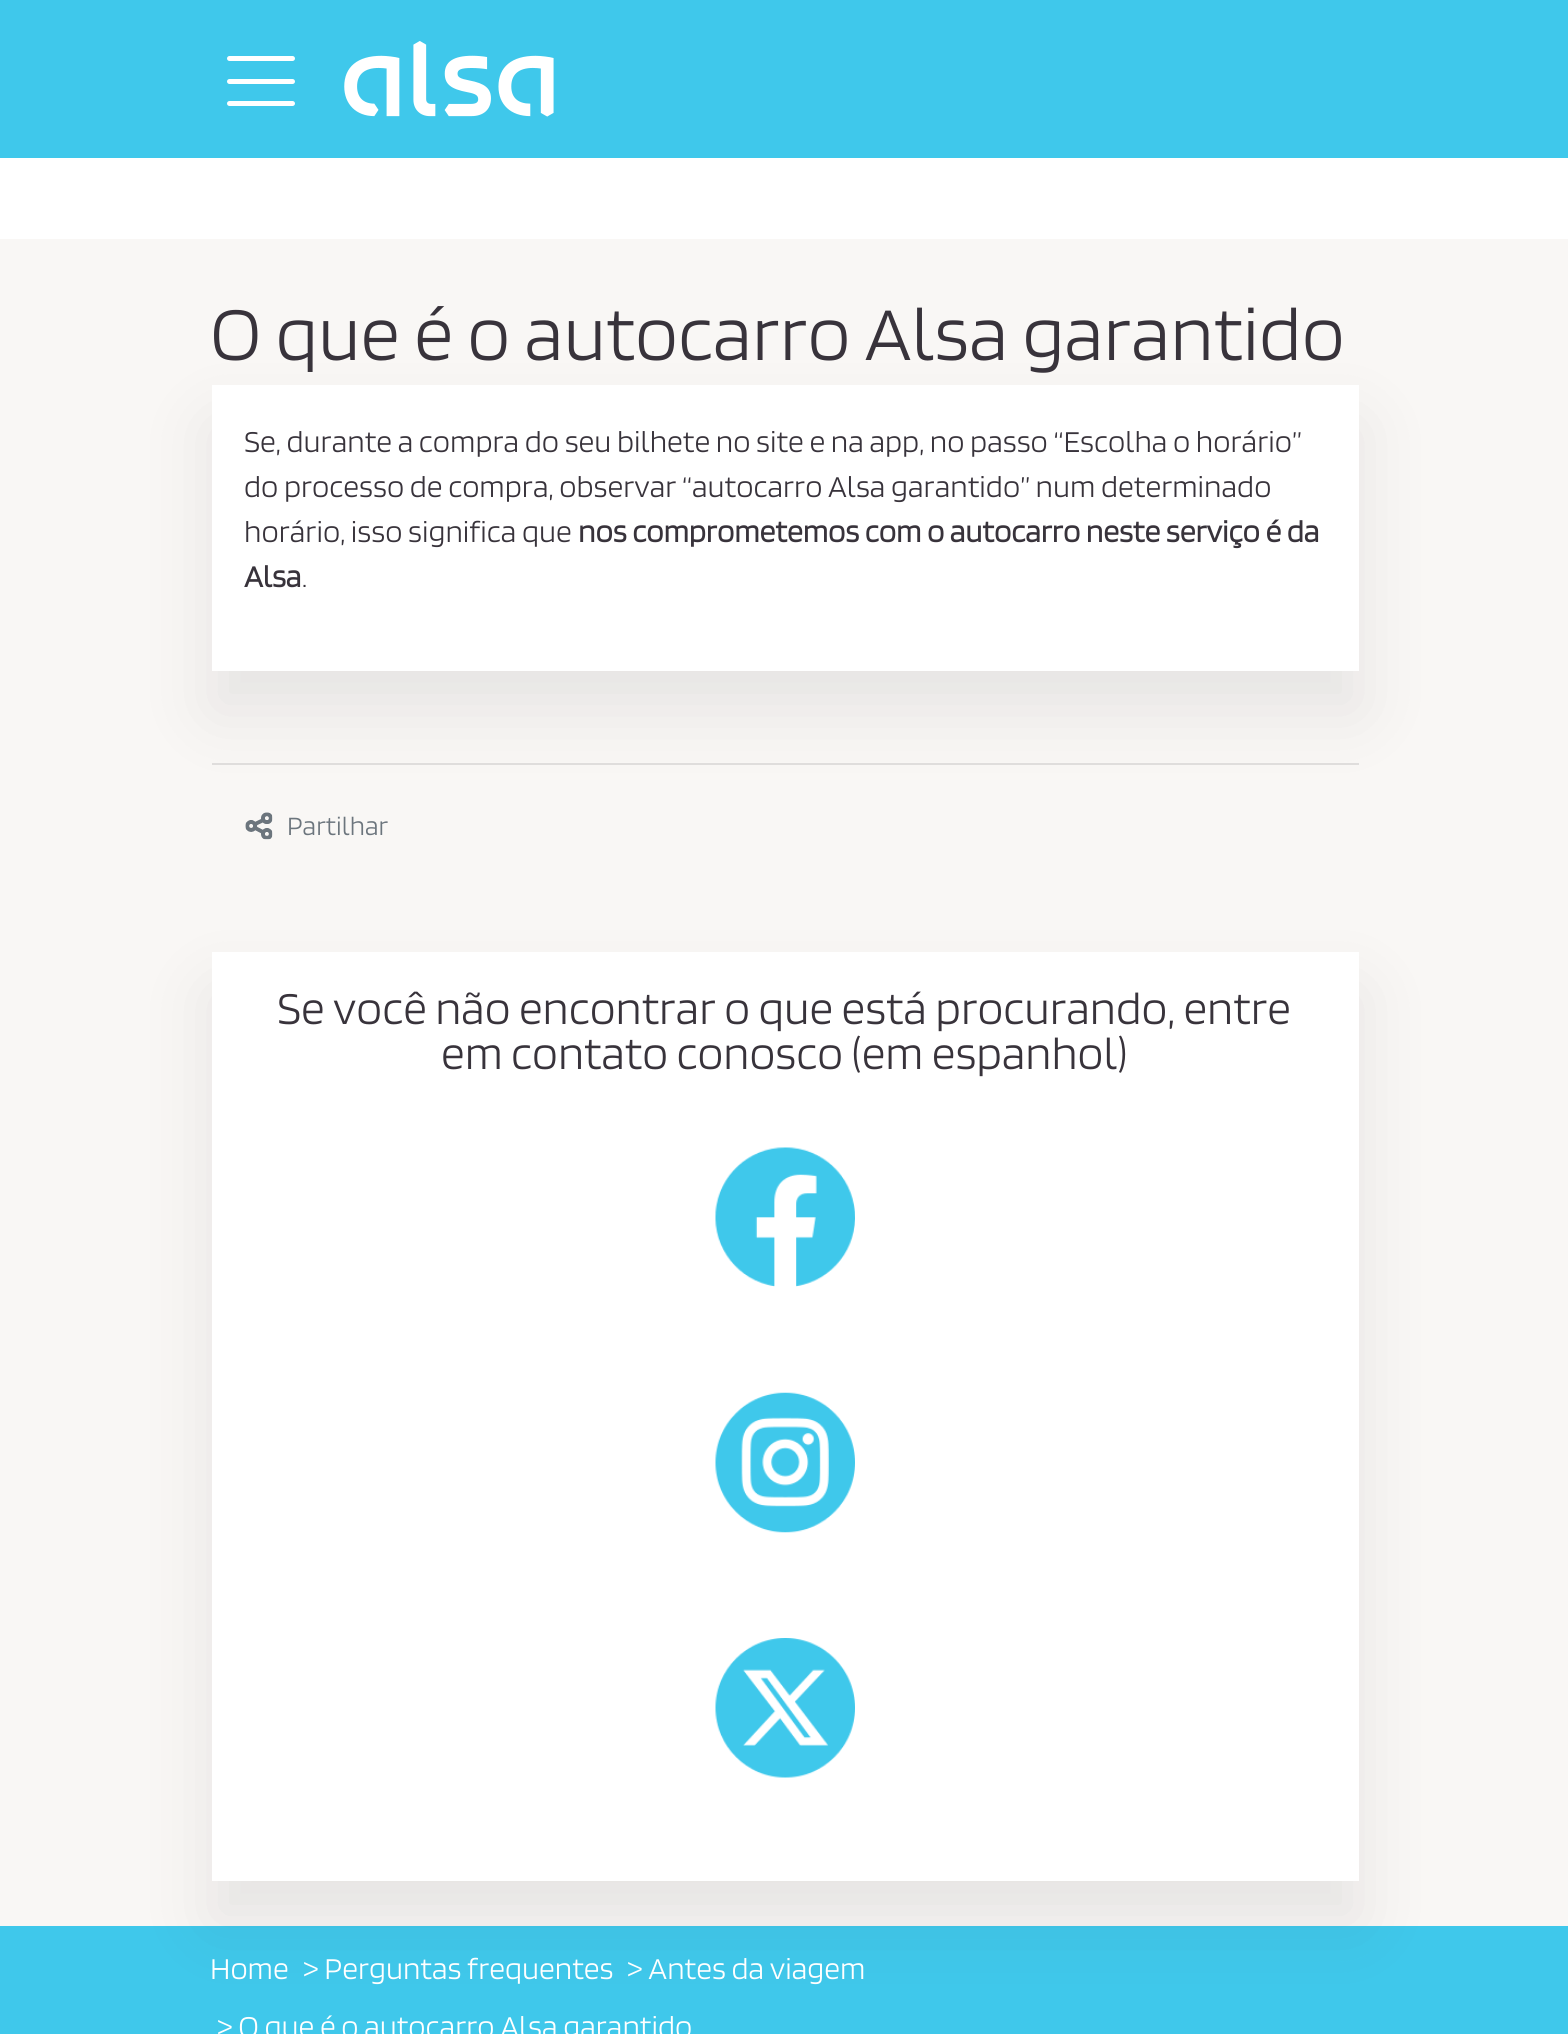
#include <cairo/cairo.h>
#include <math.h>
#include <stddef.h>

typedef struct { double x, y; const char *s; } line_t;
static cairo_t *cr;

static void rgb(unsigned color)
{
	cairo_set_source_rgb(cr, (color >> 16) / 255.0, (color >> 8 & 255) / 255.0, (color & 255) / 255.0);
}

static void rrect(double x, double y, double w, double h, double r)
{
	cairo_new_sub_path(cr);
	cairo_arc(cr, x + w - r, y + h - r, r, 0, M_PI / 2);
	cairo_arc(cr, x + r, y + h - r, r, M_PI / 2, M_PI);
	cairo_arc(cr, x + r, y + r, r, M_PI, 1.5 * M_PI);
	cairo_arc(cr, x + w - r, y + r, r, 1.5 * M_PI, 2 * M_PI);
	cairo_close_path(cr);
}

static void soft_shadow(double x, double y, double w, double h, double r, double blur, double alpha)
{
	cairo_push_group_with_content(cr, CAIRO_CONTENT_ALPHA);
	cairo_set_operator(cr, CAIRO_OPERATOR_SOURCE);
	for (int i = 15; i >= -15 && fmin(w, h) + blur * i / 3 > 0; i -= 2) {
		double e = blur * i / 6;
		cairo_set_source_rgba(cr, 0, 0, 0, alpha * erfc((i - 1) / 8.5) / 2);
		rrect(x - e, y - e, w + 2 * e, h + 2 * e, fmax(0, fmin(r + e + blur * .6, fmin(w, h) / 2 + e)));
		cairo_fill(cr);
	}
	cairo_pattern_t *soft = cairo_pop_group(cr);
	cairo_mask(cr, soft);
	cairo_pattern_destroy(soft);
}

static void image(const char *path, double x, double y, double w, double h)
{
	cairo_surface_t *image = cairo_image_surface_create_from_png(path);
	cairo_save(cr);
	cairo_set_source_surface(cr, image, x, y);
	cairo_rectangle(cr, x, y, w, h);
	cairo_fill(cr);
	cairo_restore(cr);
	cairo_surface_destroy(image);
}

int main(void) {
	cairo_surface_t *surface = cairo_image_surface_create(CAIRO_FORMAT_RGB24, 1568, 2034);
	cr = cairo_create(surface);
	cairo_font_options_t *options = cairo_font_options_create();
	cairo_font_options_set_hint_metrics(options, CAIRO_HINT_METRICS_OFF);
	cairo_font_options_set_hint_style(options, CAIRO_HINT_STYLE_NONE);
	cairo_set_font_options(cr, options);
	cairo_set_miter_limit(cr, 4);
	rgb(0xf9f7f5);
	cairo_paint(cr);
	rgb(0xffffff);
	cairo_rectangle(cr, 0, 158, 1568, 81);
	cairo_fill(cr);
	rgb(0x3fc8eb);
	cairo_rectangle(cr, 0, 0, 1568, 158);
	cairo_fill(cr);
	rgb(0xffffff);
	rrect(227, 56, 68, 5, 2.5);
	cairo_fill(cr);
	rrect(227, 79, 68, 5, 2.5);
	cairo_fill(cr);
	rrect(227, 101, 68, 5, 2.5);
	cairo_fill(cr);
	image("img/1.png", 344, 41, 210, 76);
	rgb(0x38333b);
	soft_shadow(212, 425, 1147, 286, 0, 34, 0.1);
	rgb(0xffffff);
	cairo_rectangle(cr, 212, 385, 1147, 286);
	cairo_fill(cr);
	rgb(0xdfdddc);
	cairo_rectangle(cr, 212, 763, 1147, 2);
	cairo_fill(cr);
	image("img/2.png", 245, 812, 28, 28);
	rgb(0x3fc8eb);
	cairo_rectangle(cr, 0, 1926, 1568, 108);
	cairo_fill(cr);
	rgb(0x38333b);
	soft_shadow(212, 992, 1147, 930, 0, 34, 0.1);
	rgb(0xffffff);
	cairo_rectangle(cr, 212, 952, 1147, 929);
	cairo_fill(cr);
	image("img/3.png", 715, 1147, 140, 140);
	image("img/4.png", 715, 1392, 140, 141);
	image("img/5.png", 715, 1638, 140, 140);
	cairo_select_font_face(cr, "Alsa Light", CAIRO_FONT_SLANT_NORMAL, CAIRO_FONT_WEIGHT_NORMAL);
	cairo_set_font_size(cr, 78.75);
	rgb(0x38333b);
	cairo_move_to(cr, 210, 360);
	cairo_show_text(cr, "O que é o autocarro Alsa garantido");
	cairo_set_font_size(cr, 31.5);
	{
		static const line_t items[] = {
			{244, 452, "Se, durante a compra do seu bilhete no site e na app, no passo “Escolha o horário”"},
			{244, 497, "do processo de compra, observar “autocarro Alsa garantido” num determinado"},
			{244, 542, "horário, isso significa que"},
		};
		for (size_t i = 0; i < sizeof items / sizeof *items; i++) {
			cairo_move_to(cr, items[i].x, items[i].y);
			cairo_show_text(cr, items[i].s);
		}
	}
	cairo_select_font_face(cr, "Alsa", CAIRO_FONT_SLANT_NORMAL, CAIRO_FONT_WEIGHT_BOLD);
	cairo_move_to(cr, 578, 542);
	cairo_show_text(cr, "nos comprometemos com o autocarro neste serviço é da");
	cairo_move_to(cr, 244, 587);
	cairo_show_text(cr, "Alsa");
	cairo_select_font_face(cr, "Alsa Light", CAIRO_FONT_SLANT_NORMAL, CAIRO_FONT_WEIGHT_NORMAL);
	cairo_move_to(cr, 302, 587);
	cairo_show_text(cr, ".");
	cairo_set_font_size(cr, 27.5);
	rgb(0x6c757d);
	cairo_move_to(cr, 287, 835);
	cairo_show_text(cr, "Partilhar");
	cairo_set_font_size(cr, 47.25);
	rgb(0x38333b);
	cairo_move_to(cr, 277, 1024);
	cairo_show_text(cr, "Se você não encontrar o que está procurando, entre");
	cairo_move_to(cr, 441, 1069);
	cairo_show_text(cr, "em contato conosco (em espanhol)");
	cairo_set_font_size(cr, 31.5);
	rgb(0xffffff);
	{
		static const line_t items[] = {
			{210, 1979, "Home"},
			{303, 1979, "> Perguntas frequentes"},
			{627, 1979, "> Antes da viagem"},
			{217, 2037, "> O que é o autocarro Alsa garantido"},
		};
		for (size_t i = 0; i < sizeof items / sizeof *items; i++) {
			cairo_move_to(cr, items[i].x, items[i].y);
			cairo_show_text(cr, items[i].s);
		}
	}
	cairo_surface_write_to_png(surface, "page.png");
	cairo_font_options_destroy(options);
	cairo_destroy(cr);
	cairo_surface_destroy(surface);
	return 0;
}
